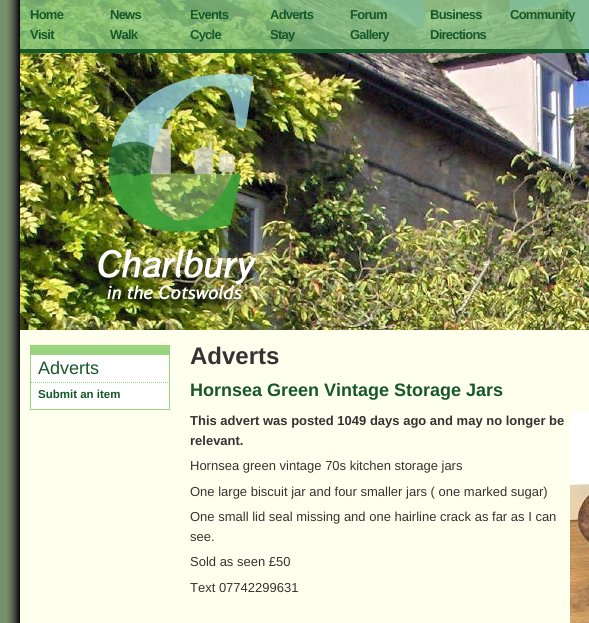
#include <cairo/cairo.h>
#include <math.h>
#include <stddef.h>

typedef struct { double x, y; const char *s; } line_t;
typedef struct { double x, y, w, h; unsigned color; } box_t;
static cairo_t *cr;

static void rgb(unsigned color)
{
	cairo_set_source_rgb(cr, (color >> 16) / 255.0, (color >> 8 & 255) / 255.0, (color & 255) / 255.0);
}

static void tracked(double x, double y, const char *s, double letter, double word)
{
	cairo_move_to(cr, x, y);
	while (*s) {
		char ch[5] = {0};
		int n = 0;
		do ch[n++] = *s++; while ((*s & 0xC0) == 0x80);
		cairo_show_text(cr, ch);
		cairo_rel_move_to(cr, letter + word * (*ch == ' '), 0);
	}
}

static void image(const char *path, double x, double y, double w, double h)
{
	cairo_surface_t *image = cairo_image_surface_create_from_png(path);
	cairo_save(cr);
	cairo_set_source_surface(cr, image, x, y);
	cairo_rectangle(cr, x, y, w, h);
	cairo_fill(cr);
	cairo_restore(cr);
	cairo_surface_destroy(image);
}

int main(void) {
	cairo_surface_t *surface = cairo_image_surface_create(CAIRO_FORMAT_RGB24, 589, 623);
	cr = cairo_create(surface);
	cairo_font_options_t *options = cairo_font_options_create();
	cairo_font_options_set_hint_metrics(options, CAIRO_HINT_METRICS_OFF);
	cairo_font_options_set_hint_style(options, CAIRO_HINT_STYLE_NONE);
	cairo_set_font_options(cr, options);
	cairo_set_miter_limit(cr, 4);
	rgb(0xffffed);
	cairo_paint(cr);
	image("img/1.png", 0, 0, 20, 623);
	image("img/2.png", 20, 0, 569, 330);
	cairo_set_source_rgba(cr, 0.518, 0.769, 0.51, 0.81);
	cairo_rectangle(cr, 20, 0, 569, 49);
	cairo_fill(cr);
	rgb(0x165829);
	cairo_rectangle(cr, 20, 49, 569, 4);
	cairo_fill(cr);
	image("img/3.png", 98, 74, 166, 234);
	{
		static const box_t items[] = {
			{31, 355, 138, 54, 0xffffff},
			{31, 345, 138, 10, 0x99d47f},
			{169, 345, 1, 65, 0x99d47f},
			{30, 409, 140, 1, 0x99d47f},
			{30, 345, 1, 65, 0x99d47f},
		};
		for (size_t i = 0; i < sizeof items / sizeof *items; i++) {
			rgb(items[i].color);
			cairo_rectangle(cr, items[i].x, items[i].y, items[i].w, items[i].h);
			cairo_fill(cr);
		}
	}
	cairo_new_path(cr);
	cairo_move_to(cr, 31, 382.5);
	cairo_line_to(cr, 169, 382.5);
	cairo_set_line_width(cr, 1);
	cairo_set_dash(cr, (double[]){1, 1}, 2, 0);
	cairo_stroke(cr);
	image("img/4.png", 570, 411, 19, 212);
	cairo_select_font_face(cr, "Liberation Sans", CAIRO_FONT_SLANT_NORMAL, CAIRO_FONT_WEIGHT_BOLD);
	cairo_set_font_size(cr, 13);
	rgb(0x165829);
	{
		static const line_t items[] = {
			{30, 19, "Home"},
			{110, 19, "News"},
			{190, 19, "Events"},
			{270, 19, "Adverts"},
			{350, 19, "Forum"},
			{430, 19, "Business"},
			{510, 19, "Community"},
			{30, 39, "Visit"},
			{110, 39, "Walk"},
			{190, 39, "Cycle"},
			{270, 39, "Stay"},
			{350, 39, "Gallery"},
			{430, 39, "Directions"},
		};
		for (size_t i = 0; i < sizeof items / sizeof *items; i++) {
			tracked(items[i].x, items[i].y, items[i].s, -0.75, 0);
		}
	}
	cairo_select_font_face(cr, "Liberation Sans", CAIRO_FONT_SLANT_NORMAL, CAIRO_FONT_WEIGHT_NORMAL);
	cairo_set_font_size(cr, 18);
	cairo_move_to(cr, 38, 374);
	cairo_show_text(cr, "Adverts");
	cairo_select_font_face(cr, "Liberation Sans", CAIRO_FONT_SLANT_NORMAL, CAIRO_FONT_WEIGHT_BOLD);
	cairo_set_font_size(cr, 11.5);
	cairo_move_to(cr, 38, 398);
	cairo_show_text(cr, "Submit an item");
	cairo_set_font_size(cr, 24);
	rgb(0x333333);
	cairo_move_to(cr, 190, 364);
	cairo_show_text(cr, "Adverts");
	cairo_set_font_size(cr, 18);
	rgb(0x165829);
	cairo_move_to(cr, 190, 396);
	cairo_show_text(cr, "Hornsea Green Vintage Storage Jars");
	cairo_set_font_size(cr, 13);
	rgb(0x333333);
	cairo_move_to(cr, 190, 425);
	cairo_show_text(cr, "This advert was posted 1049 days ago and may no longer be");
	cairo_move_to(cr, 190, 445);
	cairo_show_text(cr, "relevant.");
	cairo_select_font_face(cr, "Liberation Sans", CAIRO_FONT_SLANT_NORMAL, CAIRO_FONT_WEIGHT_NORMAL);
	{
		static const line_t items[] = {
			{190, 470, "Hornsea green vintage 70s kitchen storage jars"},
			{190, 496, "One large biscuit jar and four smaller jars ( one marked sugar)"},
			{190, 521, "One small lid seal missing and one hairline crack as far as I can"},
			{190, 541, "see."},
			{190, 566, "Sold as seen £50"},
			{190, 592, "Text 07742299631"},
		};
		for (size_t i = 0; i < sizeof items / sizeof *items; i++) {
			cairo_move_to(cr, items[i].x, items[i].y);
			cairo_show_text(cr, items[i].s);
		}
	}
	cairo_surface_write_to_png(surface, "page.png");
	cairo_font_options_destroy(options);
	cairo_destroy(cr);
	cairo_surface_destroy(surface);
	return 0;
}
